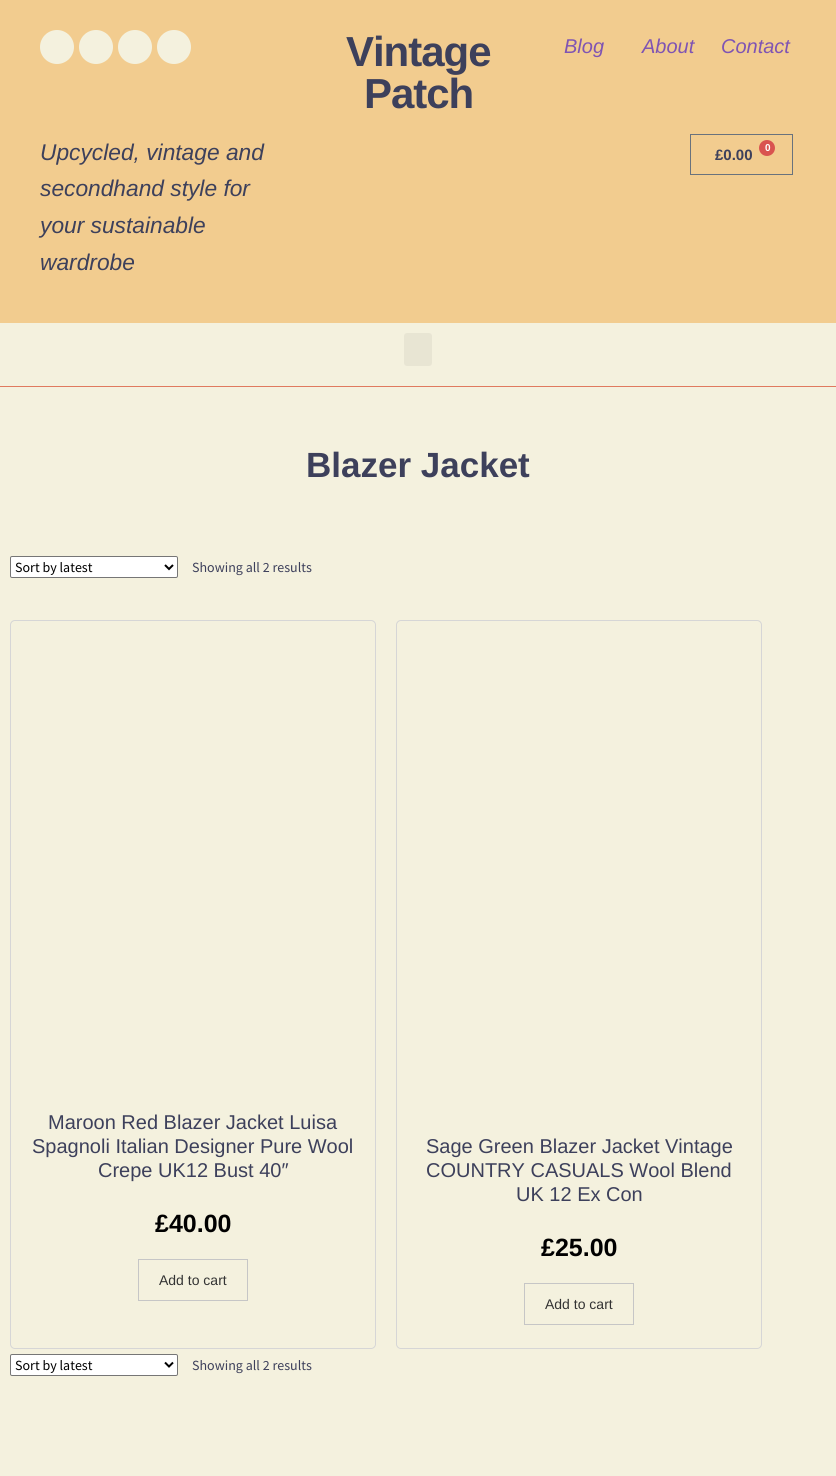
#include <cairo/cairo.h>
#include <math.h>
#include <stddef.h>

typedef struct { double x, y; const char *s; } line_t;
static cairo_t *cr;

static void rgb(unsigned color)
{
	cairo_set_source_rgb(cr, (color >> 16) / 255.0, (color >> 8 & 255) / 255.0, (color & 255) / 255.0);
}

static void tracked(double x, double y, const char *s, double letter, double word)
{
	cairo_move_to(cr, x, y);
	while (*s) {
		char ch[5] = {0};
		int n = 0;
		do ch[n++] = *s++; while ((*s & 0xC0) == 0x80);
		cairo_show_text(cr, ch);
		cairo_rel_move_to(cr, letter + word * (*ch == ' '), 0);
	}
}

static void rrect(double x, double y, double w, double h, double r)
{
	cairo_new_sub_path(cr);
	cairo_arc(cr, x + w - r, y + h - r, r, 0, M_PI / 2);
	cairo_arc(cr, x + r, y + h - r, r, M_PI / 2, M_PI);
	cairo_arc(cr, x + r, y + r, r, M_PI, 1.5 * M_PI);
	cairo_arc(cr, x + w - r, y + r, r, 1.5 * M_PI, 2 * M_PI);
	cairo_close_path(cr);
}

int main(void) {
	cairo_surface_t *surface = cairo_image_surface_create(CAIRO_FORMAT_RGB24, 836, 1476);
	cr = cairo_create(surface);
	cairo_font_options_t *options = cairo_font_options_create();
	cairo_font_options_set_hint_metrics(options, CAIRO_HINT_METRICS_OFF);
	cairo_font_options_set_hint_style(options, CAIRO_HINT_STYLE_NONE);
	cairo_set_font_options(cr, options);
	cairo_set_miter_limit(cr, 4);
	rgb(0xf4f1de);
	cairo_paint(cr);
	rgb(0xf2cc8f);
	cairo_rectangle(cr, 0, 0, 836, 323);
	cairo_fill(cr);
	rgb(0xf4f1de);
	cairo_arc(cr, 57, 47, 17, 0, 2 * M_PI);
	cairo_fill(cr);
	cairo_arc(cr, 96, 47, 17, 0, 2 * M_PI);
	cairo_fill(cr);
	cairo_arc(cr, 135, 47, 17, 0, 2 * M_PI);
	cairo_fill(cr);
	cairo_arc(cr, 174, 47, 17, 0, 2 * M_PI);
	cairo_fill(cr);
	cairo_rectangle(cr, 690.5, 134.5, 102, 40);
	rgb(0x69727d);
	cairo_set_line_width(cr, 1);
	cairo_stroke(cr);
	rgb(0xd9534f);
	cairo_arc(cr, 767, 148, 8, 0, 2 * M_PI);
	cairo_fill(cr);
	rgb(0xe07a5f);
	cairo_rectangle(cr, 0, 386, 836, 1);
	cairo_fill(cr);
	rgb(0xe8e5d3);
	rrect(404, 333, 28, 33, 3);
	cairo_fill(cr);
	rgb(0xffffff);
	rrect(10.5, 556.5, 167, 21, 1.5);
	cairo_fill_preserve(cr);
	rgb(0x767676);
	cairo_stroke(cr);
	cairo_new_path(cr);
	cairo_move_to(cr, 165, 565);
	cairo_line_to(cr, 169, 569);
	cairo_line_to(cr, 173, 565);
	rgb(0x000000);
	cairo_set_line_width(cr, 2);
	cairo_stroke(cr);
	rrect(10.5, 620.5, 365, 728, 4.5);
	rgb(0xd6d6d6);
	cairo_set_line_width(cr, 1);
	cairo_stroke(cr);
	cairo_rectangle(cr, 138.5, 1259.5, 109, 41);
	rgb(0xc6c6c6);
	cairo_stroke(cr);
	rrect(396.5, 620.5, 365, 728, 4.5);
	rgb(0xd6d6d6);
	cairo_stroke(cr);
	cairo_rectangle(cr, 524.5, 1283.5, 109, 41);
	rgb(0xc6c6c6);
	cairo_stroke(cr);
	rgb(0xffffff);
	rrect(10.5, 1354.5, 167, 21, 1.5);
	cairo_fill_preserve(cr);
	rgb(0x767676);
	cairo_stroke(cr);
	cairo_new_path(cr);
	cairo_move_to(cr, 165, 1362.5);
	cairo_line_to(cr, 169, 1366.5);
	cairo_line_to(cr, 173, 1362.5);
	rgb(0x000000);
	cairo_set_line_width(cr, 2);
	cairo_stroke(cr);
	cairo_select_font_face(cr, "Ramabhadra", CAIRO_FONT_SLANT_NORMAL, CAIRO_FONT_WEIGHT_NORMAL);
	cairo_set_font_size(cr, 42);
	rgb(0x3d405b);
	tracked(346, 66, "Vintage", -1, 0);
	tracked(364, 108, "Patch", -1, 0);
	cairo_select_font_face(cr, "Liberation Sans", CAIRO_FONT_SLANT_ITALIC, CAIRO_FONT_WEIGHT_NORMAL);
	cairo_set_font_size(cr, 20);
	rgb(0x7f54b3);
	{
		static const line_t items[] = {
			{564, 53, "Blog"},
			{642, 53, "About"},
			{721, 53, "Contact"},
		};
		for (size_t i = 0; i < sizeof items / sizeof *items; i++) {
			cairo_move_to(cr, items[i].x, items[i].y);
			cairo_show_text(cr, items[i].s);
		}
	}
	cairo_set_font_size(cr, 22.75);
	rgb(0x3d405b);
	{
		static const line_t items[] = {
			{40, 160, "Upcycled, vintage and"},
			{40, 196, "secondhand style for"},
			{40, 233, "your sustainable"},
			{40, 270, "wardrobe"},
		};
		for (size_t i = 0; i < sizeof items / sizeof *items; i++) {
			cairo_move_to(cr, items[i].x, items[i].y);
			cairo_show_text(cr, items[i].s);
		}
	}
	cairo_select_font_face(cr, "Liberation Sans", CAIRO_FONT_SLANT_NORMAL, CAIRO_FONT_WEIGHT_BOLD);
	cairo_set_font_size(cr, 10);
	rgb(0xffffff);
	cairo_move_to(cr, 765, 151);
	cairo_show_text(cr, "0");
	cairo_set_font_size(cr, 15);
	rgb(0x3d405b);
	cairo_move_to(cr, 715, 160);
	cairo_show_text(cr, "£0.00");
	cairo_set_font_size(cr, 35);
	cairo_move_to(cr, 306, 477);
	cairo_show_text(cr, "Blazer Jacket");
	cairo_select_font_face(cr, "Source Sans Pro", CAIRO_FONT_SLANT_NORMAL, CAIRO_FONT_WEIGHT_NORMAL);
	cairo_set_font_size(cr, 14);
	rgb(0x000000);
	cairo_move_to(cr, 15, 572);
	cairo_show_text(cr, "Sort by latest");
	rgb(0x3d405b);
	cairo_move_to(cr, 192, 572);
	cairo_show_text(cr, "Showing all 2 results");
	cairo_select_font_face(cr, "Liberation Sans", CAIRO_FONT_SLANT_NORMAL, CAIRO_FONT_WEIGHT_NORMAL);
	cairo_set_font_size(cr, 20);
	{
		static const line_t items[] = {
			{48, 1129, "Maroon Red Blazer Jacket Luisa"},
			{32, 1153, "Spagnoli Italian Designer Pure Wool"},
			{98, 1177, "Crepe UK12 Bust 40″"},
		};
		for (size_t i = 0; i < sizeof items / sizeof *items; i++) {
			cairo_move_to(cr, items[i].x, items[i].y);
			cairo_show_text(cr, items[i].s);
		}
	}
	cairo_select_font_face(cr, "Liberation Sans", CAIRO_FONT_SLANT_NORMAL, CAIRO_FONT_WEIGHT_BOLD);
	cairo_set_font_size(cr, 25);
	rgb(0x000000);
	cairo_move_to(cr, 155, 1232);
	cairo_show_text(cr, "£40.00");
	cairo_select_font_face(cr, "Liberation Sans", CAIRO_FONT_SLANT_NORMAL, CAIRO_FONT_WEIGHT_NORMAL);
	cairo_set_font_size(cr, 14);
	rgb(0x333333);
	cairo_move_to(cr, 159, 1285);
	cairo_show_text(cr, "Add to cart");
	cairo_set_font_size(cr, 20);
	rgb(0x3d405b);
	{
		static const line_t items[] = {
			{426, 1153, "Sage Green Blazer Jacket Vintage"},
			{426, 1177, "COUNTRY CASUALS Wool Blend"},
			{516, 1201, "UK 12 Ex Con"},
		};
		for (size_t i = 0; i < sizeof items / sizeof *items; i++) {
			cairo_move_to(cr, items[i].x, items[i].y);
			cairo_show_text(cr, items[i].s);
		}
	}
	cairo_select_font_face(cr, "Liberation Sans", CAIRO_FONT_SLANT_NORMAL, CAIRO_FONT_WEIGHT_BOLD);
	cairo_set_font_size(cr, 25);
	rgb(0x000000);
	cairo_move_to(cr, 541, 1256);
	cairo_show_text(cr, "£25.00");
	cairo_select_font_face(cr, "Liberation Sans", CAIRO_FONT_SLANT_NORMAL, CAIRO_FONT_WEIGHT_NORMAL);
	cairo_set_font_size(cr, 14);
	rgb(0x333333);
	cairo_move_to(cr, 545, 1309);
	cairo_show_text(cr, "Add to cart");
	cairo_select_font_face(cr, "Source Sans Pro", CAIRO_FONT_SLANT_NORMAL, CAIRO_FONT_WEIGHT_NORMAL);
	rgb(0x000000);
	cairo_move_to(cr, 15, 1370);
	cairo_show_text(cr, "Sort by latest");
	rgb(0x3d405b);
	cairo_move_to(cr, 192, 1370);
	cairo_show_text(cr, "Showing all 2 results");
	cairo_surface_write_to_png(surface, "page.png");
	cairo_font_options_destroy(options);
	cairo_destroy(cr);
	cairo_surface_destroy(surface);
	return 0;
}
